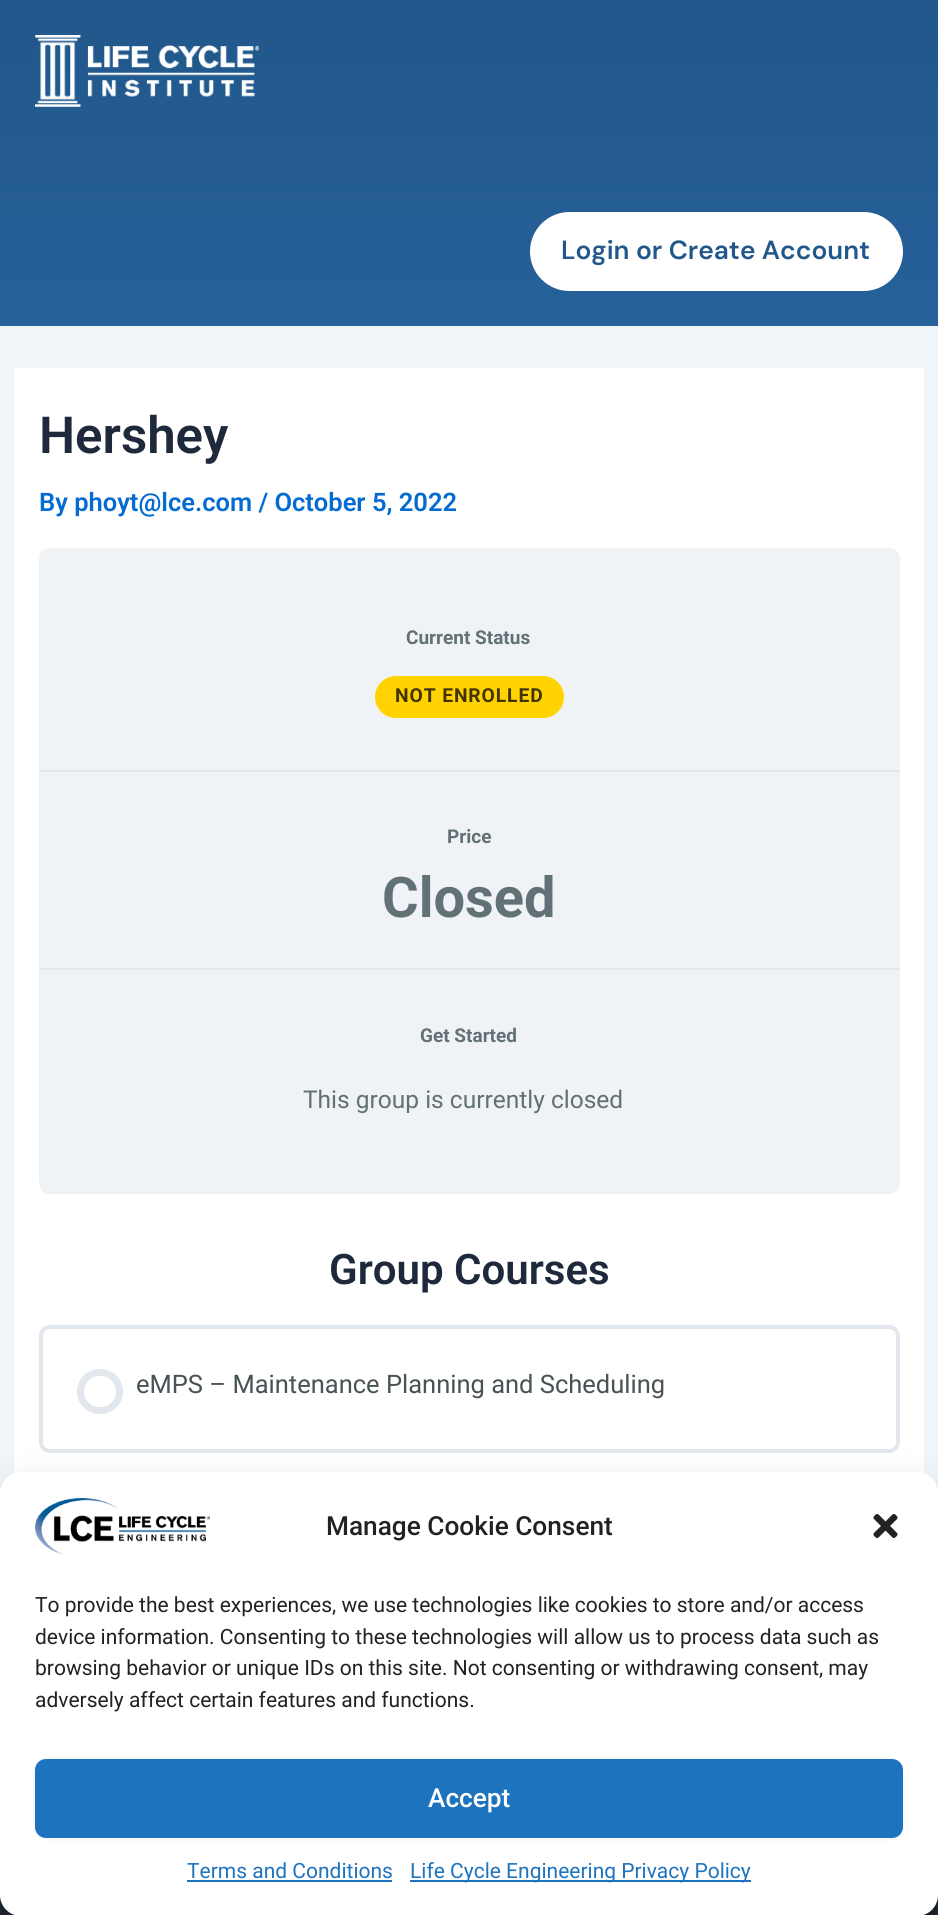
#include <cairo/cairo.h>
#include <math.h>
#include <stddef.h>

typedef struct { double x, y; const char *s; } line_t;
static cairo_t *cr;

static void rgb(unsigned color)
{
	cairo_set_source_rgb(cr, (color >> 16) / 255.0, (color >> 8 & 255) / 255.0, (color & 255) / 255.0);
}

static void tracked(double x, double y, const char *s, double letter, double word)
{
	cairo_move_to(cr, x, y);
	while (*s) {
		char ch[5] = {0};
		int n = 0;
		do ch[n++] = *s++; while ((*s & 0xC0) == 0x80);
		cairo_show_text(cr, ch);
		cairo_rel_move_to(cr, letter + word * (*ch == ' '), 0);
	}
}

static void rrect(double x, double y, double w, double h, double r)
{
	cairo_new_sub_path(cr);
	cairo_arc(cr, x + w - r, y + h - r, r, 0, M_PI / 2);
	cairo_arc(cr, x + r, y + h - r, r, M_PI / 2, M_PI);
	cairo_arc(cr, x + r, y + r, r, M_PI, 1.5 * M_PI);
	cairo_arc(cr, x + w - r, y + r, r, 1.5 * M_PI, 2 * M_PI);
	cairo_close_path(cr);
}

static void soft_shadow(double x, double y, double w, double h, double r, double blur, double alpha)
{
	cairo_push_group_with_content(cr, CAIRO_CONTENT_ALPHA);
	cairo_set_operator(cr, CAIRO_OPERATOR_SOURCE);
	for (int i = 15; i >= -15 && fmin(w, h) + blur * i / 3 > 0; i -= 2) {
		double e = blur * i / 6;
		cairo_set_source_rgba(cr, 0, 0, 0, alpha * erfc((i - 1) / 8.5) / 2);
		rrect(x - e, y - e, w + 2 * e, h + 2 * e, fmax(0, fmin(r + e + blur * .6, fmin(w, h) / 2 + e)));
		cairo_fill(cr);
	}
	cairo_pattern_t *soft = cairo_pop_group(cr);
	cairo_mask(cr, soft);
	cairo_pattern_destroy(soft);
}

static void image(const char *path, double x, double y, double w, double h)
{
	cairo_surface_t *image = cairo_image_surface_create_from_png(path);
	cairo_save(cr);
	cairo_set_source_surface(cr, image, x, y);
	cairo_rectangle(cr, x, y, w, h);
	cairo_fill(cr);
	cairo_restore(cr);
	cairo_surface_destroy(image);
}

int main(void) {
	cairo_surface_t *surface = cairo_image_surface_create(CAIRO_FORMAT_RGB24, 938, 1915);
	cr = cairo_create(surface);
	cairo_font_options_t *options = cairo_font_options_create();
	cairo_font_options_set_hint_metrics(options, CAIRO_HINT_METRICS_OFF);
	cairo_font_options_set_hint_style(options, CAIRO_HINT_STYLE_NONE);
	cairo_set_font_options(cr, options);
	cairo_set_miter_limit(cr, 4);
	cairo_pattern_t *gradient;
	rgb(0xf0f5fa);
	cairo_paint(cr);
	gradient = cairo_pattern_create_linear(469, 0, 469, 326);
	cairo_pattern_add_color_stop_rgba(gradient, 0, 0.129, 0.341, 0.541, 1);
	cairo_pattern_add_color_stop_rgba(gradient, 1, 0.153, 0.38, 0.608, 1);
	cairo_set_source(cr, gradient);
	cairo_pattern_destroy(gradient);
	cairo_rectangle(cr, 0, 0, 938, 326);
	cairo_fill(cr);
	image("img/1.png", 35, 35, 224, 72);
	rgb(0xffffff);
	rrect(530, 212, 373, 79, 39.5);
	cairo_fill(cr);
	cairo_rectangle(cr, 14, 368, 910, 1106);
	cairo_fill(cr);
	rgb(0xf0f3f6);
	rrect(39, 548, 861, 646, 11);
	cairo_fill(cr);
	rgb(0xe2e7ed);
	cairo_rectangle(cr, 39, 770, 861, 2);
	cairo_fill(cr);
	rgb(0xffd200);
	rrect(375, 676, 189, 42, 21);
	cairo_fill(cr);
	rgb(0xe2e7ed);
	cairo_rectangle(cr, 39, 968, 861, 2);
	cairo_fill(cr);
	rrect(41, 1327, 857, 124, 9);
	cairo_set_line_width(cr, 4);
	cairo_stroke(cr);
	rrect(80.5, 1372.5, 39, 38, 19);
	cairo_set_line_width(cr, 7);
	cairo_stroke(cr);
	rgb(0x242d36);
	cairo_rectangle(cr, 0, 1895, 938, 20);
	cairo_fill(cr);
	rgb(0x000000);
	soft_shadow(0, 1482, 938, 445, 21, 5, 0.23);
	soft_shadow(0, 1489, 938, 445, 21, 17.5, 0.19);
	rgb(0xffffff);
	rrect(0, 1472, 938, 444, 21);
	cairo_fill(cr);
	image("img/2.png", 35, 1498, 175, 57);
	image("img/3.png", 873, 1514, 25, 24);
	rgb(0x000000);
	soft_shadow(35, 1761, 868, 78, 11, 2, 0.05);
	rgb(0x1e73be);
	rrect(36, 1760, 866, 77, 10);
	cairo_fill_preserve(cr);
	cairo_set_line_width(cr, 2);
	cairo_stroke(cr);
	cairo_rectangle(cr, 187, 1880, 205, 2);
	cairo_fill(cr);
	cairo_rectangle(cr, 410, 1880, 341, 2);
	cairo_fill(cr);
	cairo_select_font_face(cr, "DM Sans SemiBold", CAIRO_FONT_SLANT_NORMAL, CAIRO_FONT_WEIGHT_NORMAL);
	cairo_set_font_size(cr, 26.25);
	rgb(0x21578a);
	cairo_move_to(cr, 561, 259);
	cairo_show_text(cr, "Login or Create Account");
	cairo_select_font_face(cr, "Roboto SemiBold", CAIRO_FONT_SLANT_NORMAL, CAIRO_FONT_WEIGHT_NORMAL);
	cairo_set_font_size(cr, 51);
	rgb(0x1e293b);
	cairo_move_to(cr, 39, 453);
	cairo_show_text(cr, "Hershey");
	cairo_set_font_size(cr, 25.5);
	rgb(0x046bd2);
	cairo_move_to(cr, 39, 511);
	cairo_show_text(cr, "By phoyt@lce.com / October 5, 2022");
	cairo_select_font_face(cr, "Roboto", CAIRO_FONT_SLANT_NORMAL, CAIRO_FONT_WEIGHT_BOLD);
	cairo_set_font_size(cr, 19);
	rgb(0x617175);
	cairo_move_to(cr, 406, 644);
	cairo_show_text(cr, "Current Status");
	cairo_set_font_size(cr, 19.25);
	rgb(0x403500);
	tracked(395, 702, "NOT ENROLLED", 0.9, 0);
	cairo_set_font_size(cr, 19);
	rgb(0x617175);
	cairo_move_to(cr, 447, 843);
	cairo_show_text(cr, "Price");
	cairo_set_font_size(cr, 56);
	cairo_move_to(cr, 382, 917);
	cairo_show_text(cr, "Closed");
	cairo_set_font_size(cr, 19);
	cairo_move_to(cr, 420, 1042);
	cairo_show_text(cr, "Get Started");
	cairo_select_font_face(cr, "Roboto", CAIRO_FONT_SLANT_NORMAL, CAIRO_FONT_WEIGHT_NORMAL);
	cairo_set_font_size(cr, 24.5);
	cairo_move_to(cr, 303, 1108);
	cairo_show_text(cr, "This group is currently closed");
	cairo_select_font_face(cr, "Roboto SemiBold", CAIRO_FONT_SLANT_NORMAL, CAIRO_FONT_WEIGHT_NORMAL);
	cairo_set_font_size(cr, 42);
	rgb(0x1e293b);
	cairo_move_to(cr, 329, 1284);
	cairo_show_text(cr, "Group Courses");
	cairo_select_font_face(cr, "Roboto", CAIRO_FONT_SLANT_NORMAL, CAIRO_FONT_WEIGHT_NORMAL);
	cairo_set_font_size(cr, 25.5);
	rgb(0x495255);
	cairo_move_to(cr, 136, 1393);
	cairo_show_text(cr, "eMPS – Maintenance Planning and Scheduling");
	cairo_select_font_face(cr, "Roboto Medium", CAIRO_FONT_SLANT_NORMAL, CAIRO_FONT_WEIGHT_NORMAL);
	cairo_set_font_size(cr, 26.25);
	rgb(0x222222);
	cairo_move_to(cr, 326, 1535);
	cairo_show_text(cr, "Manage Cookie Consent");
	cairo_select_font_face(cr, "Roboto", CAIRO_FONT_SLANT_NORMAL, CAIRO_FONT_WEIGHT_NORMAL);
	cairo_set_font_size(cr, 21);
	{
		static const line_t items[] = {
			{35, 1612, "To provide the best experiences, we use technologies like cookies to store and/or access"},
			{35, 1644, "device information. Consenting to these technologies will allow us to process data such as"},
			{35, 1675, "browsing behavior or unique IDs on this site. Not consenting or withdrawing consent, may"},
			{35, 1707, "adversely affect certain features and functions."},
		};
		for (size_t i = 0; i < sizeof items / sizeof *items; i++) {
			cairo_move_to(cr, items[i].x, items[i].y);
			cairo_show_text(cr, items[i].s);
		}
	}
	cairo_select_font_face(cr, "Roboto Medium", CAIRO_FONT_SLANT_NORMAL, CAIRO_FONT_WEIGHT_NORMAL);
	cairo_set_font_size(cr, 26.25);
	rgb(0xffffff);
	cairo_move_to(cr, 428, 1807);
	cairo_show_text(cr, "Accept");
	cairo_select_font_face(cr, "Roboto", CAIRO_FONT_SLANT_NORMAL, CAIRO_FONT_WEIGHT_NORMAL);
	cairo_set_font_size(cr, 21);
	rgb(0x1e73be);
	cairo_move_to(cr, 187, 1878);
	cairo_show_text(cr, "Terms and Conditions");
	cairo_move_to(cr, 410, 1878);
	cairo_show_text(cr, "Life Cycle Engineering Privacy Policy");
	cairo_surface_write_to_png(surface, "page.png");
	cairo_font_options_destroy(options);
	cairo_destroy(cr);
	cairo_surface_destroy(surface);
	return 0;
}
